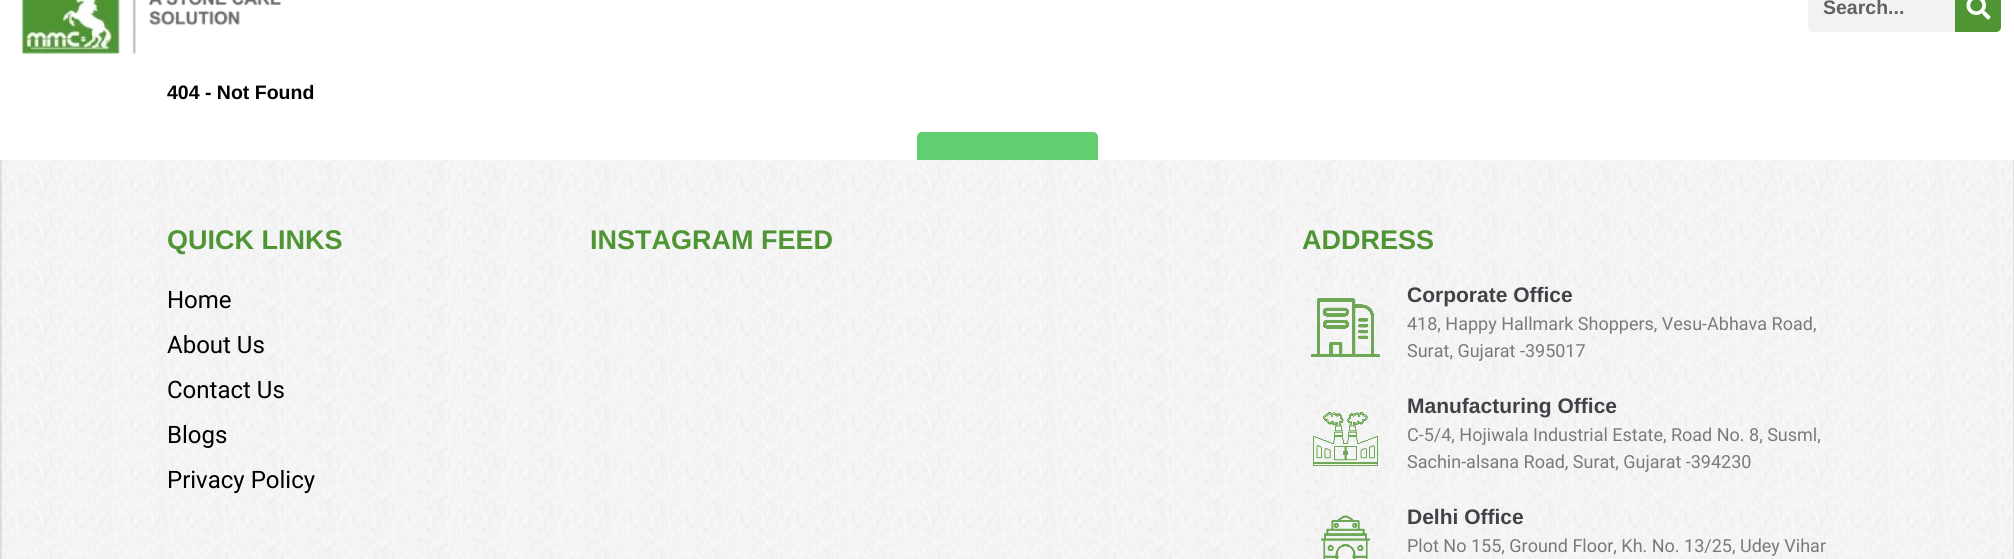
#include <cairo/cairo.h>
#include <math.h>
#include <stddef.h>

typedef struct { double x, y; const char *s; } line_t;
static cairo_t *cr;

static void rgb(unsigned color)
{
	cairo_set_source_rgb(cr, (color >> 16) / 255.0, (color >> 8 & 255) / 255.0, (color & 255) / 255.0);
}

static void rrect(double x, double y, double w, double h, double r)
{
	cairo_new_sub_path(cr);
	cairo_arc(cr, x + w - r, y + h - r, r, 0, M_PI / 2);
	cairo_arc(cr, x + r, y + h - r, r, M_PI / 2, M_PI);
	cairo_arc(cr, x + r, y + r, r, M_PI, 1.5 * M_PI);
	cairo_arc(cr, x + w - r, y + r, r, 1.5 * M_PI, 2 * M_PI);
	cairo_close_path(cr);
}

static void image(const char *path, double x, double y, double w, double h)
{
	cairo_surface_t *image = cairo_image_surface_create_from_png(path);
	cairo_save(cr);
	cairo_set_source_surface(cr, image, x, y);
	cairo_rectangle(cr, x, y, w, h);
	cairo_fill(cr);
	cairo_restore(cr);
	cairo_surface_destroy(image);
}

int main(void) {
	cairo_surface_t *surface = cairo_image_surface_create(CAIRO_FORMAT_RGB24, 2014, 559);
	cr = cairo_create(surface);
	cairo_font_options_t *options = cairo_font_options_create();
	cairo_font_options_set_hint_metrics(options, CAIRO_HINT_METRICS_OFF);
	cairo_font_options_set_hint_style(options, CAIRO_HINT_STYLE_NONE);
	cairo_set_font_options(cr, options);
	cairo_set_miter_limit(cr, 4);
	rgb(0xffffff);
	cairo_paint(cr);
	image("img/1.png", 22, 0, 259, 54);
	rgb(0xf1f2f3);
	rrect(1808, -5, 193, 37, 5);
	cairo_fill(cr);
	rgb(0x4f9533);
	cairo_new_path(cr);
	cairo_move_to(cr, 1955, -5);
	cairo_line_to(cr, 1996, -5);
	cairo_curve_to(cr, 1999, -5, 2001, -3, 2001, 0);
	cairo_line_to(cr, 2001, 27);
	cairo_curve_to(cr, 2001, 30, 1999, 32, 1996, 32);
	cairo_line_to(cr, 1955, 32);
	cairo_close_path(cr);
	cairo_fill(cr);
	image("img/2.png", 1966, 0, 25, 20);
	rgb(0x61ce70);
	rrect(917, 132, 181, 59, 5);
	cairo_fill(cr);
	image("img/3.png", 0, 160, 2014, 399);
	cairo_set_source_rgba(cr, 0, 0, 0, 0.09);
	cairo_new_path(cr);
	cairo_move_to(cr, 2014, 160);
	cairo_line_to(cr, 2014, 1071);
	cairo_line_to(cr, 2013, 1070);
	cairo_line_to(cr, 2013, 160);
	cairo_close_path(cr);
	cairo_fill(cr);
	cairo_new_path(cr);
	cairo_move_to(cr, 0, 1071);
	cairo_line_to(cr, 0, 160);
	cairo_line_to(cr, 2, 160);
	cairo_line_to(cr, 2, 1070);
	cairo_close_path(cr);
	cairo_fill(cr);
	image("img/4.png", 1311, 298, 69, 59);
	image("img/5.png", 1313, 412, 65, 54);
	image("img/6.png", 1321, 515, 49, 44);
	cairo_select_font_face(cr, "Liberation Sans", CAIRO_FONT_SLANT_NORMAL, CAIRO_FONT_WEIGHT_BOLD);
	cairo_set_font_size(cr, 19.5);
	rgb(0x606161);
	cairo_move_to(cr, 1823, 14);
	cairo_show_text(cr, "Search...");
	rgb(0x000000);
	cairo_move_to(cr, 167, 99);
	cairo_show_text(cr, "404 - Not Found");
	cairo_set_font_size(cr, 27);
	rgb(0x4f9533);
	cairo_move_to(cr, 167, 249);
	cairo_show_text(cr, "QUICK LINKS");
	cairo_select_font_face(cr, "Roboto", CAIRO_FONT_SLANT_NORMAL, CAIRO_FONT_WEIGHT_NORMAL);
	cairo_set_font_size(cr, 24);
	rgb(0x000000);
	{
		static const line_t items[] = {
			{167, 308, "Home"},
			{167, 353, "About Us"},
			{167, 398, "Contact Us"},
			{167, 443, "Blogs"},
			{167, 488, "Privacy Policy"},
		};
		for (size_t i = 0; i < sizeof items / sizeof *items; i++) {
			cairo_move_to(cr, items[i].x, items[i].y);
			cairo_show_text(cr, items[i].s);
		}
	}
	cairo_select_font_face(cr, "Liberation Sans", CAIRO_FONT_SLANT_NORMAL, CAIRO_FONT_WEIGHT_BOLD);
	cairo_set_font_size(cr, 27);
	rgb(0x4f9533);
	cairo_move_to(cr, 590, 249);
	cairo_show_text(cr, "INSTAGRAM FEED");
	cairo_move_to(cr, 1302, 249);
	cairo_show_text(cr, "ADDRESS");
	cairo_set_font_size(cr, 21);
	rgb(0x414247);
	cairo_move_to(cr, 1407, 302);
	cairo_show_text(cr, "Corporate Office");
	cairo_select_font_face(cr, "Roboto", CAIRO_FONT_SLANT_NORMAL, CAIRO_FONT_WEIGHT_NORMAL);
	cairo_set_font_size(cr, 18);
	rgb(0x7a7a7a);
	cairo_move_to(cr, 1407, 330);
	cairo_show_text(cr, "418, Happy Hallmark Shoppers, Vesu-Abhava Road,");
	cairo_move_to(cr, 1407, 357);
	cairo_show_text(cr, "Surat, Gujarat -395017");
	cairo_select_font_face(cr, "Liberation Sans", CAIRO_FONT_SLANT_NORMAL, CAIRO_FONT_WEIGHT_BOLD);
	cairo_set_font_size(cr, 21);
	rgb(0x414247);
	cairo_move_to(cr, 1407, 413);
	cairo_show_text(cr, "Manufacturing Office");
	cairo_select_font_face(cr, "Roboto", CAIRO_FONT_SLANT_NORMAL, CAIRO_FONT_WEIGHT_NORMAL);
	cairo_set_font_size(cr, 18);
	rgb(0x7a7a7a);
	cairo_move_to(cr, 1407, 441);
	cairo_show_text(cr, "C-5/4, Hojiwala Industrial Estate, Road No. 8, Susml,");
	cairo_move_to(cr, 1407, 468);
	cairo_show_text(cr, "Sachin-alsana Road, Surat, Gujarat -394230");
	cairo_select_font_face(cr, "Liberation Sans", CAIRO_FONT_SLANT_NORMAL, CAIRO_FONT_WEIGHT_BOLD);
	cairo_set_font_size(cr, 21);
	rgb(0x414247);
	cairo_move_to(cr, 1407, 524);
	cairo_show_text(cr, "Delhi Office");
	cairo_select_font_face(cr, "Roboto", CAIRO_FONT_SLANT_NORMAL, CAIRO_FONT_WEIGHT_NORMAL);
	cairo_set_font_size(cr, 18);
	rgb(0x7a7a7a);
	cairo_move_to(cr, 1407, 552);
	cairo_show_text(cr, "Plot No 155, Ground Floor, Kh. No. 13/25, Udey Vihar");
	cairo_surface_write_to_png(surface, "page.png");
	cairo_font_options_destroy(options);
	cairo_destroy(cr);
	cairo_surface_destroy(surface);
	return 0;
}
